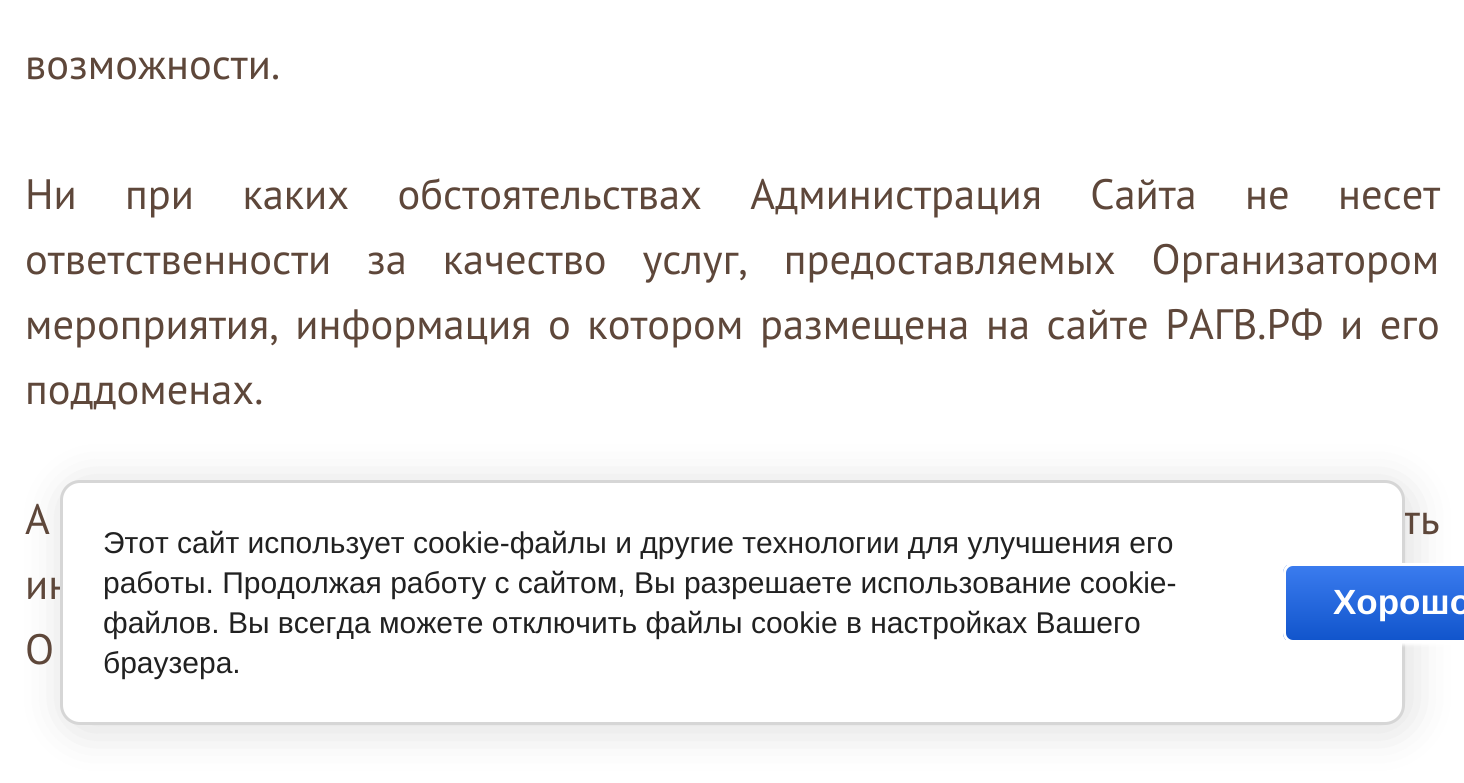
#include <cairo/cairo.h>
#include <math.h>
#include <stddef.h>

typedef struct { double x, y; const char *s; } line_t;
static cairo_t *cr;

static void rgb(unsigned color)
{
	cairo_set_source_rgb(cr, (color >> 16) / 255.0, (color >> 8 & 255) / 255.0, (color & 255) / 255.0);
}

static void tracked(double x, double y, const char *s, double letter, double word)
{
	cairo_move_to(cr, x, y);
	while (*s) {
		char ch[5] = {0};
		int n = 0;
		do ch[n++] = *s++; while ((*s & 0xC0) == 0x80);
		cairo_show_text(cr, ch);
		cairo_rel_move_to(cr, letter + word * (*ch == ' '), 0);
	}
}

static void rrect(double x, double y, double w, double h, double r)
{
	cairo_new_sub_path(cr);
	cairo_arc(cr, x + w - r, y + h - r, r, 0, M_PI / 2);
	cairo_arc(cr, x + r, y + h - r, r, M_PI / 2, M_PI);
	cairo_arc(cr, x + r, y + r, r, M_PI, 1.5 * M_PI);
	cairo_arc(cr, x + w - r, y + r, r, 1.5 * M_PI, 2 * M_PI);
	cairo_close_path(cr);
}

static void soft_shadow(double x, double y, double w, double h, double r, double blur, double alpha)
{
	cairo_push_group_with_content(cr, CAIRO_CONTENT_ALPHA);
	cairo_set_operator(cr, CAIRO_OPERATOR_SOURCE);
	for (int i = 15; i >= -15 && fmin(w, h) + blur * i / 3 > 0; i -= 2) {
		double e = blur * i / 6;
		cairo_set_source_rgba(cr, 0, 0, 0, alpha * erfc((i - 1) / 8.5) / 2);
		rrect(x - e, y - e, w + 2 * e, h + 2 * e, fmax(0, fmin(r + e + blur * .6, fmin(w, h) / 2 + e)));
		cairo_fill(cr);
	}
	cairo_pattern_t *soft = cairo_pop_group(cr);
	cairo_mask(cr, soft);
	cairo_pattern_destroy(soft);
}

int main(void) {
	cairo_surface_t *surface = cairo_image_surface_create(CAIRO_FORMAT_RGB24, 1464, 783);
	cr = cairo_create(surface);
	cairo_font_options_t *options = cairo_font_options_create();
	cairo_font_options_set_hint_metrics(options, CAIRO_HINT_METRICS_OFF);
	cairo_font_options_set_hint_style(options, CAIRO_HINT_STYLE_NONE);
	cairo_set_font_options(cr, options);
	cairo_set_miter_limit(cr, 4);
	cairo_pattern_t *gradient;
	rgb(0xffffff);
	cairo_paint(cr);
	rgb(0x000000);
	soft_shadow(65, 485, 1345, 245, 20, 22.5, 0.14);
	cairo_select_font_face(cr, "PT Sans", CAIRO_FONT_SLANT_NORMAL, CAIRO_FONT_WEIGHT_NORMAL);
	cairo_set_font_size(cr, 42.5);
	rgb(0x5e473a);
	cairo_move_to(cr, 25, 79);
	cairo_show_text(cr, "возможности.");
	tracked(25, 209, "Ни при каких обстоятельствах Администрация Сайта не несет", 0, 37);
	tracked(25, 274, "ответственности за качество услуг, предоставляемых Организатором", 0, 24.5);
	tracked(25, 339, "мероприятия, информация о котором размещена на сайте РАГВ.РФ и его", 0, 5.25);
	cairo_move_to(cr, 25, 404);
	cairo_show_text(cr, "поддоменах.");
	tracked(25, 534, "А", 0, 31);
	tracked(1403, 534, "ть", 0, 31);
	tracked(25, 599, "ин", 0, 23);
	cairo_move_to(cr, 25, 664);
	cairo_show_text(cr, "О");
	rgb(0xffffff);
	rrect(61.5, 481.5, 1342, 242, 18.5);
	cairo_fill_preserve(cr);
	rgb(0xd6d6d6);
	cairo_set_line_width(cr, 3);
	cairo_stroke(cr);
	cairo_select_font_face(cr, "Liberation Sans", CAIRO_FONT_SLANT_NORMAL, CAIRO_FONT_WEIGHT_NORMAL);
	cairo_set_font_size(cr, 30);
	rgb(0x212121);
	{
		static const line_t items[] = {
			{103, 553, "Этот сайт использует cookie-файлы и другие технологии для улучшения его"},
			{103, 593, "работы. Продолжая работу с сайтом, Вы разрешаете использование cookie-"},
			{103, 633, "файлов. Вы всегда можете отключить файлы cookie в настройках Вашего"},
			{103, 673, "браузера."},
		};
		for (size_t i = 0; i < sizeof items / sizeof *items; i++) {
			cairo_move_to(cr, items[i].x, items[i].y);
			cairo_show_text(cr, items[i].s);
		}
	}
	rgb(0xffffff);
	soft_shadow(1283, 565, 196, 80, 10, 1.5, 1);
	cairo_save(cr);
	rrect(1283, 563, 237, 80, 10);
	cairo_clip(cr);
	gradient = cairo_pattern_create_linear(1401, 565, 1401, 640);
	cairo_pattern_add_color_stop_rgba(gradient, 0, 0.231, 0.486, 0.937, 1);
	cairo_pattern_add_color_stop_rgba(gradient, 1, 0.067, 0.333, 0.8, 1);
	cairo_set_source(cr, gradient);
	cairo_pattern_destroy(gradient);
	cairo_rectangle(cr, 1283, 565, 181, 75);
	cairo_fill(cr);
	cairo_restore(cr);
	rrect(1284.5, 564.5, 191, 77, 8.5);
	rgb(0xffffff);
	cairo_stroke(cr);
	cairo_select_font_face(cr, "Liberation Sans", CAIRO_FONT_SLANT_NORMAL, CAIRO_FONT_WEIGHT_BOLD);
	cairo_set_font_size(cr, 35);
	cairo_move_to(cr, 1333, 614);
	cairo_show_text(cr, "Хорошо");
	cairo_surface_write_to_png(surface, "page.png");
	cairo_font_options_destroy(options);
	cairo_destroy(cr);
	cairo_surface_destroy(surface);
	return 0;
}
